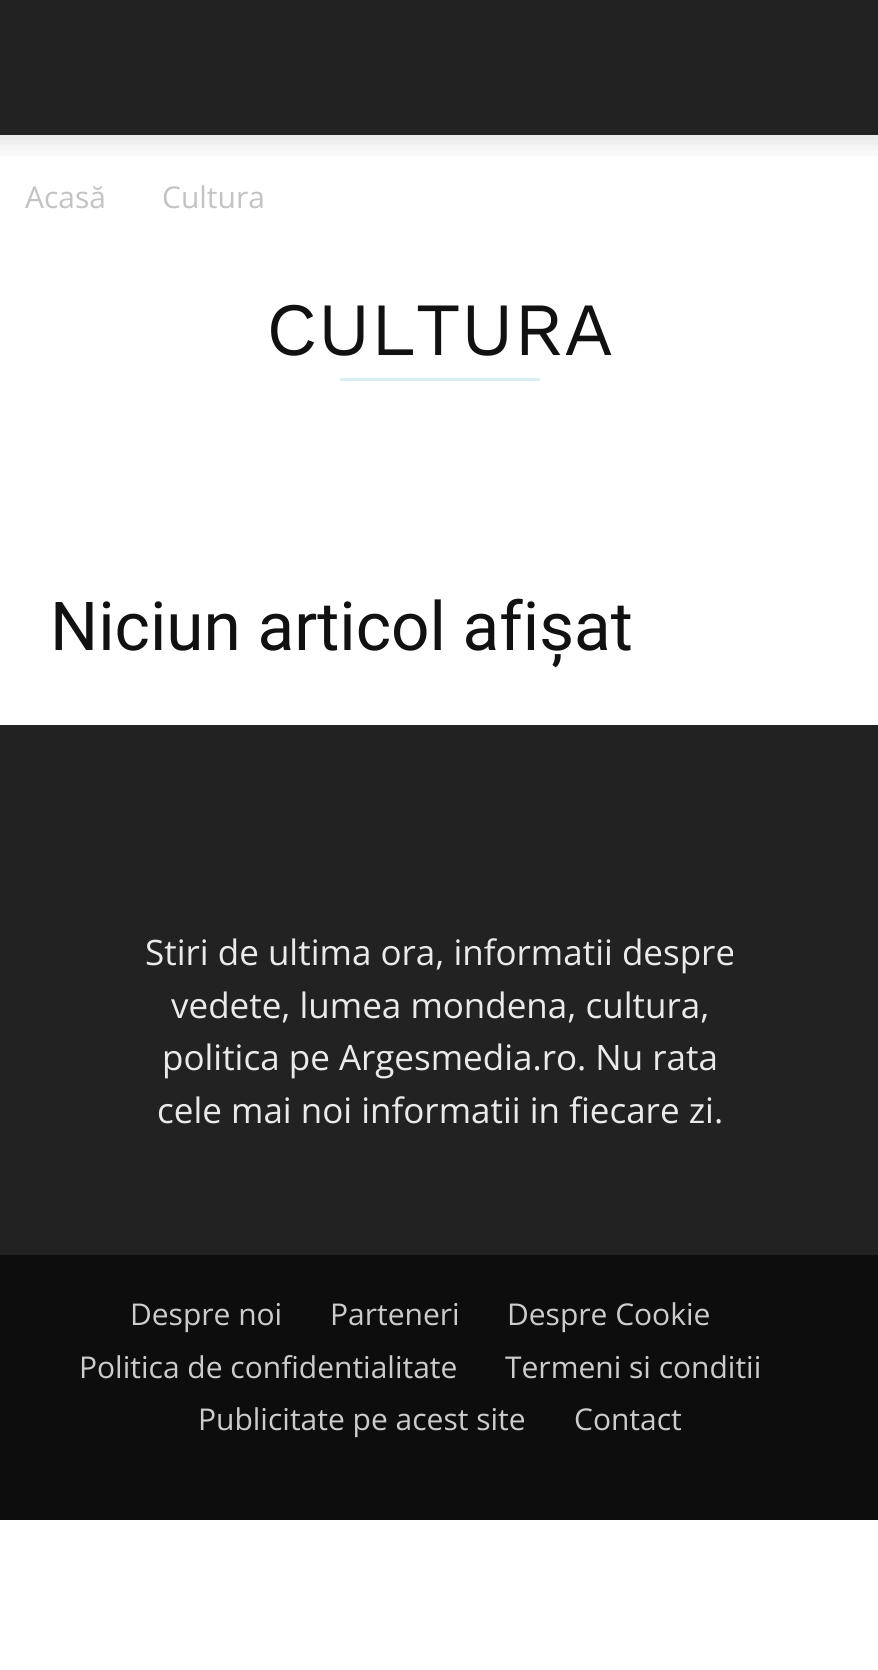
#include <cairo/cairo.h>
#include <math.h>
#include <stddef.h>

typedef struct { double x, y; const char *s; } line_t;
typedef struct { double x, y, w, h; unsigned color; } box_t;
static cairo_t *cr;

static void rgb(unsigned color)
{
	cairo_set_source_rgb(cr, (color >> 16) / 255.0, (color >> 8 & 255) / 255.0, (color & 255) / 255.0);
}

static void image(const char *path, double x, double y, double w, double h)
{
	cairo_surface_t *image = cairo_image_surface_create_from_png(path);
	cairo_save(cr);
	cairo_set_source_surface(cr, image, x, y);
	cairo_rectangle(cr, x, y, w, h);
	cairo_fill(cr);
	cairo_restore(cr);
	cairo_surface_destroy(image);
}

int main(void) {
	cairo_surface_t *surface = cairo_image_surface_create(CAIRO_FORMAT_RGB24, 878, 1670);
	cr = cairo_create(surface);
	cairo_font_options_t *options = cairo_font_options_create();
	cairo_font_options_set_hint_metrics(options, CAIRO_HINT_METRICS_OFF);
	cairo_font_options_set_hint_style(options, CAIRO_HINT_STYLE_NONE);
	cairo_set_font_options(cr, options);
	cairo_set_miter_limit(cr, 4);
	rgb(0xffffff);
	cairo_paint(cr);
	rgb(0x222222);
	cairo_rectangle(cr, 0, 0, 878, 135);
	cairo_fill(cr);
	image("img/1.png", 0, 135, 878, 21);
	{
		static const box_t items[] = {
			{340, 378, 200, 3, 0xd7edf3},
			{0, 725, 878, 530, 0x222222},
			{0, 1255, 878, 265, 0x0d0d0d},
		};
		for (size_t i = 0; i < sizeof items / sizeof *items; i++) {
			rgb(items[i].color);
			cairo_rectangle(cr, items[i].x, items[i].y, items[i].w, items[i].h);
			cairo_fill(cr);
		}
	}
	cairo_select_font_face(cr, "Open Sans", CAIRO_FONT_SLANT_NORMAL, CAIRO_FONT_WEIGHT_NORMAL);
	cairo_set_font_size(cr, 30);
	rgb(0xc3c3c3);
	cairo_move_to(cr, 25, 208);
	cairo_show_text(cr, "Acasă");
	cairo_move_to(cr, 162, 208);
	cairo_show_text(cr, "Cultura");
	cairo_select_font_face(cr, "Work Sans", CAIRO_FONT_SLANT_NORMAL, CAIRO_FONT_WEIGHT_NORMAL);
	cairo_set_font_size(cr, 75);
	rgb(0x111111);
	cairo_move_to(cr, 266, 355);
	cairo_show_text(cr, "CULTURA");
	cairo_select_font_face(cr, "Roboto", CAIRO_FONT_SLANT_NORMAL, CAIRO_FONT_WEIGHT_NORMAL);
	cairo_set_font_size(cr, 67.5);
	cairo_move_to(cr, 50, 650);
	cairo_show_text(cr, "Niciun articol afișat");
	cairo_select_font_face(cr, "Open Sans", CAIRO_FONT_SLANT_NORMAL, CAIRO_FONT_WEIGHT_NORMAL);
	cairo_set_font_size(cr, 35);
	rgb(0xeaeaea);
	{
		static const line_t items[] = {
			{145, 965, "Stiri de ultima ora, informatii despre"},
			{171, 1018, "vedete, lumea mondena, cultura,"},
			{162, 1070, "politica pe Argesmedia.ro. Nu rata"},
			{157, 1123, "cele mai noi informatii in fiecare zi."},
		};
		for (size_t i = 0; i < sizeof items / sizeof *items; i++) {
			cairo_move_to(cr, items[i].x, items[i].y);
			cairo_show_text(cr, items[i].s);
		}
	}
	cairo_set_font_size(cr, 30);
	rgb(0xcccccc);
	{
		static const line_t items[] = {
			{130, 1325, "Despre noi"},
			{330, 1325, "Parteneri"},
			{507, 1325, "Despre Cookie"},
			{79, 1378, "Politica de confidentialitate"},
			{505, 1378, "Termeni si conditii"},
			{198, 1430, "Publicitate pe acest site"},
			{574, 1430, "Contact"},
		};
		for (size_t i = 0; i < sizeof items / sizeof *items; i++) {
			cairo_move_to(cr, items[i].x, items[i].y);
			cairo_show_text(cr, items[i].s);
		}
	}
	cairo_surface_write_to_png(surface, "page.png");
	cairo_font_options_destroy(options);
	cairo_destroy(cr);
	cairo_surface_destroy(surface);
	return 0;
}
